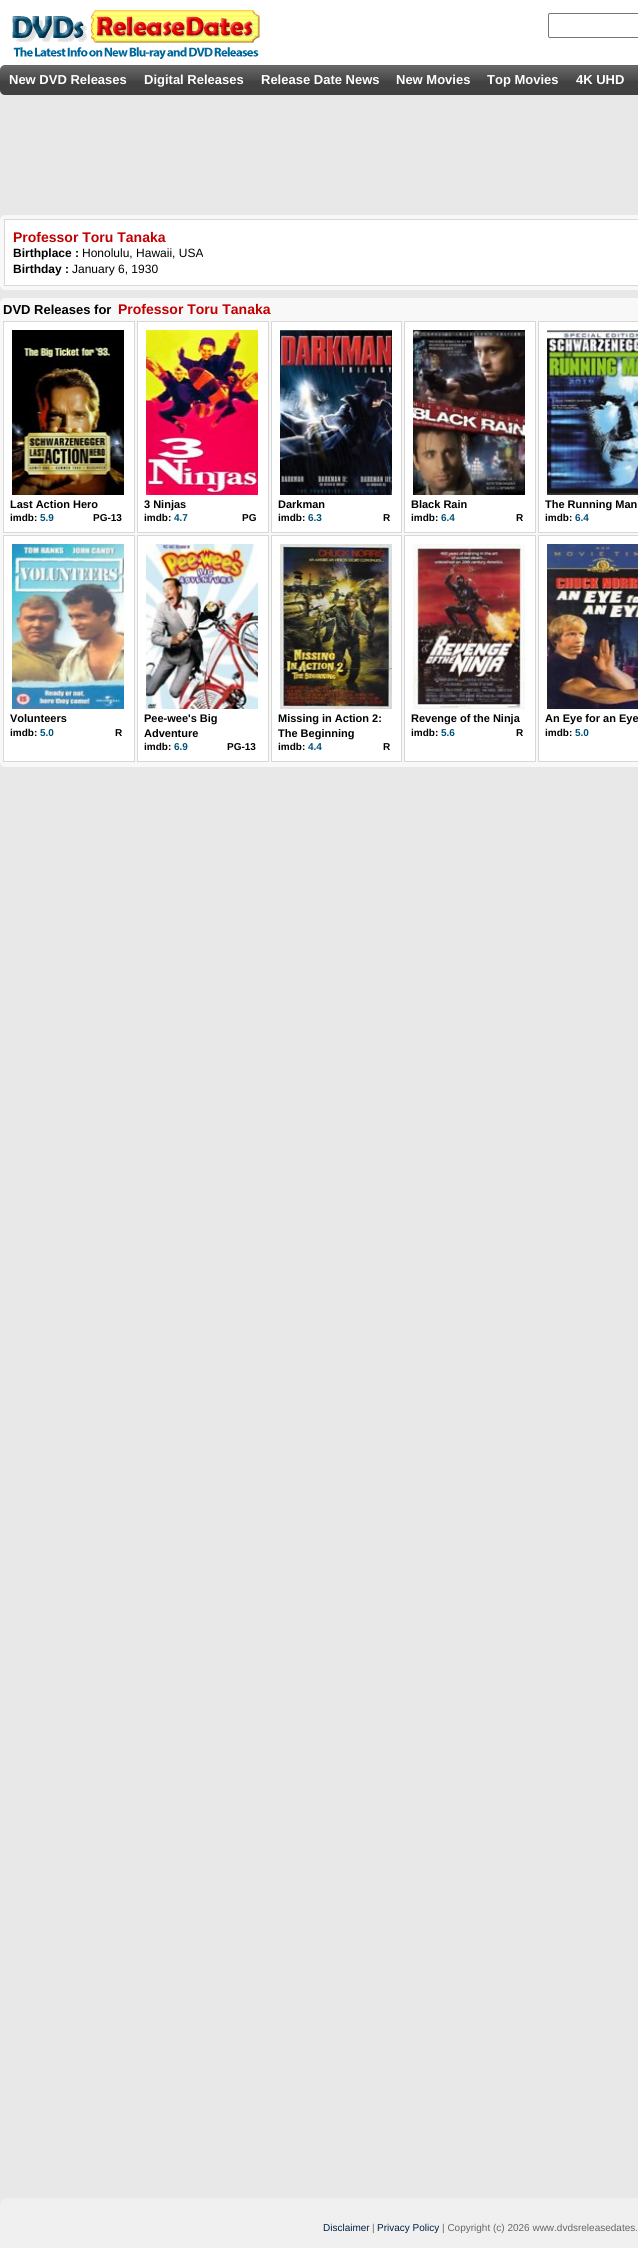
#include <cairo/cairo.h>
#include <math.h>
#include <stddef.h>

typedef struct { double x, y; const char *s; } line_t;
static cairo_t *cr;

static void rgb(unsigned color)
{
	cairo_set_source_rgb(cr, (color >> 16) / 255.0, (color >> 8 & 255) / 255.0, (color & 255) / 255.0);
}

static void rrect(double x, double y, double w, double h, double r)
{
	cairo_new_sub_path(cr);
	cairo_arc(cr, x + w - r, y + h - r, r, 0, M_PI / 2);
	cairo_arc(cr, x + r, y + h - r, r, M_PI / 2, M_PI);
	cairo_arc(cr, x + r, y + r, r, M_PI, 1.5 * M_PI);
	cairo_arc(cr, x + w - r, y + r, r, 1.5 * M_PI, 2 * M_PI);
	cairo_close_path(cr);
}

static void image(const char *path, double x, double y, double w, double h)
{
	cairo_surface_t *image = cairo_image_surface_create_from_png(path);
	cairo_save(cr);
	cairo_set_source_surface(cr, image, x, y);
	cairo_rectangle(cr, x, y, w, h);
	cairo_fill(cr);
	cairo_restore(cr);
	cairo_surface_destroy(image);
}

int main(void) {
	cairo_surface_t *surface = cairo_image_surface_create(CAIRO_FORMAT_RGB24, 638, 2248);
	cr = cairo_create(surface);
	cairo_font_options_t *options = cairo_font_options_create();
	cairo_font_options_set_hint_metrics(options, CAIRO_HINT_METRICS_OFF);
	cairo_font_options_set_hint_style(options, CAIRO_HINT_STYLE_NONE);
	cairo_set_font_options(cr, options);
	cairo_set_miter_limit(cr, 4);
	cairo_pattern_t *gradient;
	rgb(0xe8e8e8);
	cairo_paint(cr);
	rgb(0xffffff);
	cairo_rectangle(cr, 0, 0, 638, 70);
	cairo_fill(cr);
	image("img/1.png", 12, 10, 248, 49);
	rrect(548.5, 13.5, 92, 24, 1.5);
	rgb(0x767676);
	cairo_set_line_width(cr, 1);
	cairo_stroke(cr);
	gradient = cairo_pattern_create_linear(490, 65, 490, 95);
	cairo_pattern_add_color_stop_rgba(gradient, 0, 0.329, 0.329, 0.329, 1);
	cairo_pattern_add_color_stop_rgba(gradient, 0.03, 0.439, 0.439, 0.439, 1);
	cairo_pattern_add_color_stop_rgba(gradient, 0.07, 0.396, 0.396, 0.396, 1);
	cairo_pattern_add_color_stop_rgba(gradient, 0.51, 0.286, 0.286, 0.286, 1);
	cairo_pattern_add_color_stop_rgba(gradient, 0.53, 0.259, 0.259, 0.259, 1);
	cairo_pattern_add_color_stop_rgba(gradient, 1, 0.251, 0.251, 0.251, 1);
	cairo_set_source(cr, gradient);
	cairo_pattern_destroy(gradient);
	rrect(0, 65, 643, 30, 5);
	cairo_fill(cr);
	rgb(0xf8f8f8);
	rrect(0, 215, 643, 75, 5);
	cairo_fill(cr);
	rgb(0xffffff);
	cairo_rectangle(cr, 4.5, 219.5, 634, 66);
	cairo_fill_preserve(cr);
	rgb(0xd8d8d8);
	cairo_stroke(cr);
	rgb(0xf8f8f8);
	rrect(0, 298, 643, 469, 5);
	cairo_fill(cr);
	rgb(0xffffff);
	cairo_rectangle(cr, 3.5, 321.5, 131, 211);
	cairo_fill_preserve(cr);
	rgb(0xd8d8d8);
	cairo_stroke(cr);
	image("img/2.png", 12, 330, 112, 165);
	rgb(0xffffff);
	cairo_rectangle(cr, 137.5, 321.5, 131, 211);
	cairo_fill_preserve(cr);
	rgb(0xd8d8d8);
	cairo_stroke(cr);
	image("img/3.png", 146, 330, 112, 165);
	rgb(0xffffff);
	cairo_rectangle(cr, 271.5, 321.5, 130, 211);
	cairo_fill_preserve(cr);
	rgb(0xd8d8d8);
	cairo_stroke(cr);
	image("img/4.png", 280, 330, 112, 165);
	rgb(0xffffff);
	cairo_rectangle(cr, 404.5, 321.5, 131, 211);
	cairo_fill_preserve(cr);
	rgb(0xd8d8d8);
	cairo_stroke(cr);
	image("img/5.png", 413, 330, 112, 165);
	rgb(0xffffff);
	cairo_rectangle(cr, 538.5, 321.5, 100, 211);
	cairo_fill_preserve(cr);
	rgb(0xd8d8d8);
	cairo_stroke(cr);
	image("img/6.png", 547, 330, 91, 165);
	rgb(0xffffff);
	cairo_rectangle(cr, 3.5, 535.5, 131, 226);
	cairo_fill_preserve(cr);
	rgb(0xd8d8d8);
	cairo_stroke(cr);
	image("img/7.png", 12, 544, 112, 165);
	rgb(0xffffff);
	cairo_rectangle(cr, 137.5, 535.5, 131, 226);
	cairo_fill_preserve(cr);
	rgb(0xd8d8d8);
	cairo_stroke(cr);
	image("img/8.png", 146, 544, 112, 165);
	rgb(0xffffff);
	cairo_rectangle(cr, 271.5, 535.5, 130, 226);
	cairo_fill_preserve(cr);
	rgb(0xd8d8d8);
	cairo_stroke(cr);
	image("img/9.png", 280, 544, 112, 165);
	rgb(0xffffff);
	cairo_rectangle(cr, 404.5, 535.5, 131, 226);
	cairo_fill_preserve(cr);
	rgb(0xd8d8d8);
	cairo_stroke(cr);
	image("img/10.png", 413, 544, 112, 165);
	rgb(0xffffff);
	cairo_rectangle(cr, 538.5, 535.5, 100, 226);
	cairo_fill_preserve(cr);
	rgb(0xd8d8d8);
	cairo_stroke(cr);
	image("img/11.png", 547, 544, 91, 165);
	rgb(0xf0f0f0);
	rrect(0, 2198, 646, 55, 8);
	cairo_fill(cr);
	cairo_select_font_face(cr, "Liberation Sans", CAIRO_FONT_SLANT_NORMAL, CAIRO_FONT_WEIGHT_BOLD);
	cairo_set_font_size(cr, 13);
	rgb(0xffffff);
	{
		static const line_t items[] = {
			{9, 84, "New DVD Releases"},
			{144, 84, "Digital Releases"},
			{261, 84, "Release Date News"},
			{396, 84, "New Movies"},
			{487, 84, "Top Movies"},
			{576, 84, "4K UHD"},
		};
		for (size_t i = 0; i < sizeof items / sizeof *items; i++) {
			cairo_move_to(cr, items[i].x, items[i].y);
			cairo_show_text(cr, items[i].s);
		}
	}
	cairo_set_font_size(cr, 14);
	rgb(0xc00000);
	cairo_move_to(cr, 13, 242);
	cairo_show_text(cr, "Professor Toru Tanaka");
	cairo_set_font_size(cr, 12);
	rgb(0x000000);
	cairo_move_to(cr, 13, 257);
	cairo_show_text(cr, "Birthplace :");
	cairo_select_font_face(cr, "Liberation Sans", CAIRO_FONT_SLANT_NORMAL, CAIRO_FONT_WEIGHT_NORMAL);
	cairo_move_to(cr, 82, 257);
	cairo_show_text(cr, "Honolulu, Hawaii, USA");
	cairo_select_font_face(cr, "Liberation Sans", CAIRO_FONT_SLANT_NORMAL, CAIRO_FONT_WEIGHT_BOLD);
	cairo_move_to(cr, 13, 273);
	cairo_show_text(cr, "Birthday :");
	cairo_select_font_face(cr, "Liberation Sans", CAIRO_FONT_SLANT_NORMAL, CAIRO_FONT_WEIGHT_NORMAL);
	cairo_move_to(cr, 72, 273);
	cairo_show_text(cr, "January 6, 1930");
	cairo_select_font_face(cr, "Liberation Sans", CAIRO_FONT_SLANT_NORMAL, CAIRO_FONT_WEIGHT_BOLD);
	cairo_set_font_size(cr, 13);
	cairo_move_to(cr, 3, 314);
	cairo_show_text(cr, "DVD Releases for");
	cairo_set_font_size(cr, 14);
	rgb(0xc00000);
	cairo_move_to(cr, 118, 314);
	cairo_show_text(cr, "Professor Toru Tanaka");
	cairo_set_font_size(cr, 11);
	rgb(0x000000);
	cairo_move_to(cr, 10, 508);
	cairo_show_text(cr, "Last Action Hero");
	cairo_set_font_size(cr, 10);
	cairo_move_to(cr, 10, 521);
	cairo_show_text(cr, "imdb:");
	rgb(0x005177);
	cairo_move_to(cr, 40, 521);
	cairo_show_text(cr, "5.9");
	rgb(0x000000);
	cairo_move_to(cr, 93, 521);
	cairo_show_text(cr, "PG-13");
	cairo_set_font_size(cr, 11);
	cairo_move_to(cr, 144, 508);
	cairo_show_text(cr, "3 Ninjas");
	cairo_set_font_size(cr, 10);
	cairo_move_to(cr, 144, 521);
	cairo_show_text(cr, "imdb:");
	rgb(0x005177);
	cairo_move_to(cr, 174, 521);
	cairo_show_text(cr, "4.7");
	rgb(0x000000);
	cairo_move_to(cr, 242, 521);
	cairo_show_text(cr, "PG");
	cairo_set_font_size(cr, 11);
	cairo_move_to(cr, 278, 508);
	cairo_show_text(cr, "Darkman");
	cairo_set_font_size(cr, 10);
	cairo_move_to(cr, 278, 521);
	cairo_show_text(cr, "imdb:");
	rgb(0x005177);
	cairo_move_to(cr, 308, 521);
	cairo_show_text(cr, "6.3");
	rgb(0x000000);
	cairo_move_to(cr, 383, 521);
	cairo_show_text(cr, "R");
	cairo_set_font_size(cr, 11);
	cairo_move_to(cr, 411, 508);
	cairo_show_text(cr, "Black Rain");
	cairo_set_font_size(cr, 10);
	cairo_move_to(cr, 411, 521);
	cairo_show_text(cr, "imdb:");
	rgb(0x005177);
	cairo_move_to(cr, 441, 521);
	cairo_show_text(cr, "6.4");
	rgb(0x000000);
	cairo_move_to(cr, 516, 521);
	cairo_show_text(cr, "R");
	cairo_set_font_size(cr, 11);
	cairo_move_to(cr, 545, 508);
	cairo_show_text(cr, "The Running Man");
	cairo_set_font_size(cr, 10);
	cairo_move_to(cr, 545, 521);
	cairo_show_text(cr, "imdb:");
	rgb(0x005177);
	cairo_move_to(cr, 575, 521);
	cairo_show_text(cr, "6.4");
	cairo_set_font_size(cr, 11);
	rgb(0x000000);
	cairo_move_to(cr, 10, 722);
	cairo_show_text(cr, "Volunteers");
	cairo_set_font_size(cr, 10);
	cairo_move_to(cr, 10, 736);
	cairo_show_text(cr, "imdb:");
	rgb(0x005177);
	cairo_move_to(cr, 40, 736);
	cairo_show_text(cr, "5.0");
	rgb(0x000000);
	cairo_move_to(cr, 115, 736);
	cairo_show_text(cr, "R");
	cairo_set_font_size(cr, 11);
	cairo_move_to(cr, 144, 722);
	cairo_show_text(cr, "Pee-wee's Big");
	cairo_move_to(cr, 144, 737);
	cairo_show_text(cr, "Adventure");
	cairo_set_font_size(cr, 10);
	cairo_move_to(cr, 144, 750);
	cairo_show_text(cr, "imdb:");
	rgb(0x005177);
	cairo_move_to(cr, 174, 750);
	cairo_show_text(cr, "6.9");
	rgb(0x000000);
	cairo_move_to(cr, 227, 750);
	cairo_show_text(cr, "PG-13");
	cairo_set_font_size(cr, 11);
	cairo_move_to(cr, 278, 722);
	cairo_show_text(cr, "Missing in Action 2:");
	cairo_move_to(cr, 278, 737);
	cairo_show_text(cr, "The Beginning");
	cairo_set_font_size(cr, 10);
	cairo_move_to(cr, 278, 750);
	cairo_show_text(cr, "imdb:");
	rgb(0x005177);
	cairo_move_to(cr, 308, 750);
	cairo_show_text(cr, "4.4");
	rgb(0x000000);
	cairo_move_to(cr, 383, 750);
	cairo_show_text(cr, "R");
	cairo_set_font_size(cr, 11);
	cairo_move_to(cr, 411, 722);
	cairo_show_text(cr, "Revenge of the Ninja");
	cairo_set_font_size(cr, 10);
	cairo_move_to(cr, 411, 736);
	cairo_show_text(cr, "imdb:");
	rgb(0x005177);
	cairo_move_to(cr, 441, 736);
	cairo_show_text(cr, "5.6");
	rgb(0x000000);
	cairo_move_to(cr, 516, 736);
	cairo_show_text(cr, "R");
	cairo_set_font_size(cr, 11);
	cairo_move_to(cr, 545, 722);
	cairo_show_text(cr, "An Eye for an Eye");
	cairo_set_font_size(cr, 10);
	cairo_move_to(cr, 545, 736);
	cairo_show_text(cr, "imdb:");
	rgb(0x005177);
	cairo_move_to(cr, 575, 736);
	cairo_show_text(cr, "5.0");
	cairo_select_font_face(cr, "Liberation Sans", CAIRO_FONT_SLANT_NORMAL, CAIRO_FONT_WEIGHT_NORMAL);
	rgb(0x002042);
	cairo_move_to(cr, 323, 2231);
	cairo_show_text(cr, "Disclaimer");
	rgb(0x666666);
	cairo_move_to(cr, 372, 2231);
	cairo_show_text(cr, "|");
	rgb(0x002042);
	cairo_move_to(cr, 377, 2231);
	cairo_show_text(cr, "Privacy Policy");
	rgb(0x666666);
	cairo_move_to(cr, 442, 2231);
	cairo_show_text(cr, "| Copyright (c) 2026 www.dvdsreleasedates.");
	cairo_surface_write_to_png(surface, "page.png");
	cairo_font_options_destroy(options);
	cairo_destroy(cr);
	cairo_surface_destroy(surface);
	return 0;
}
